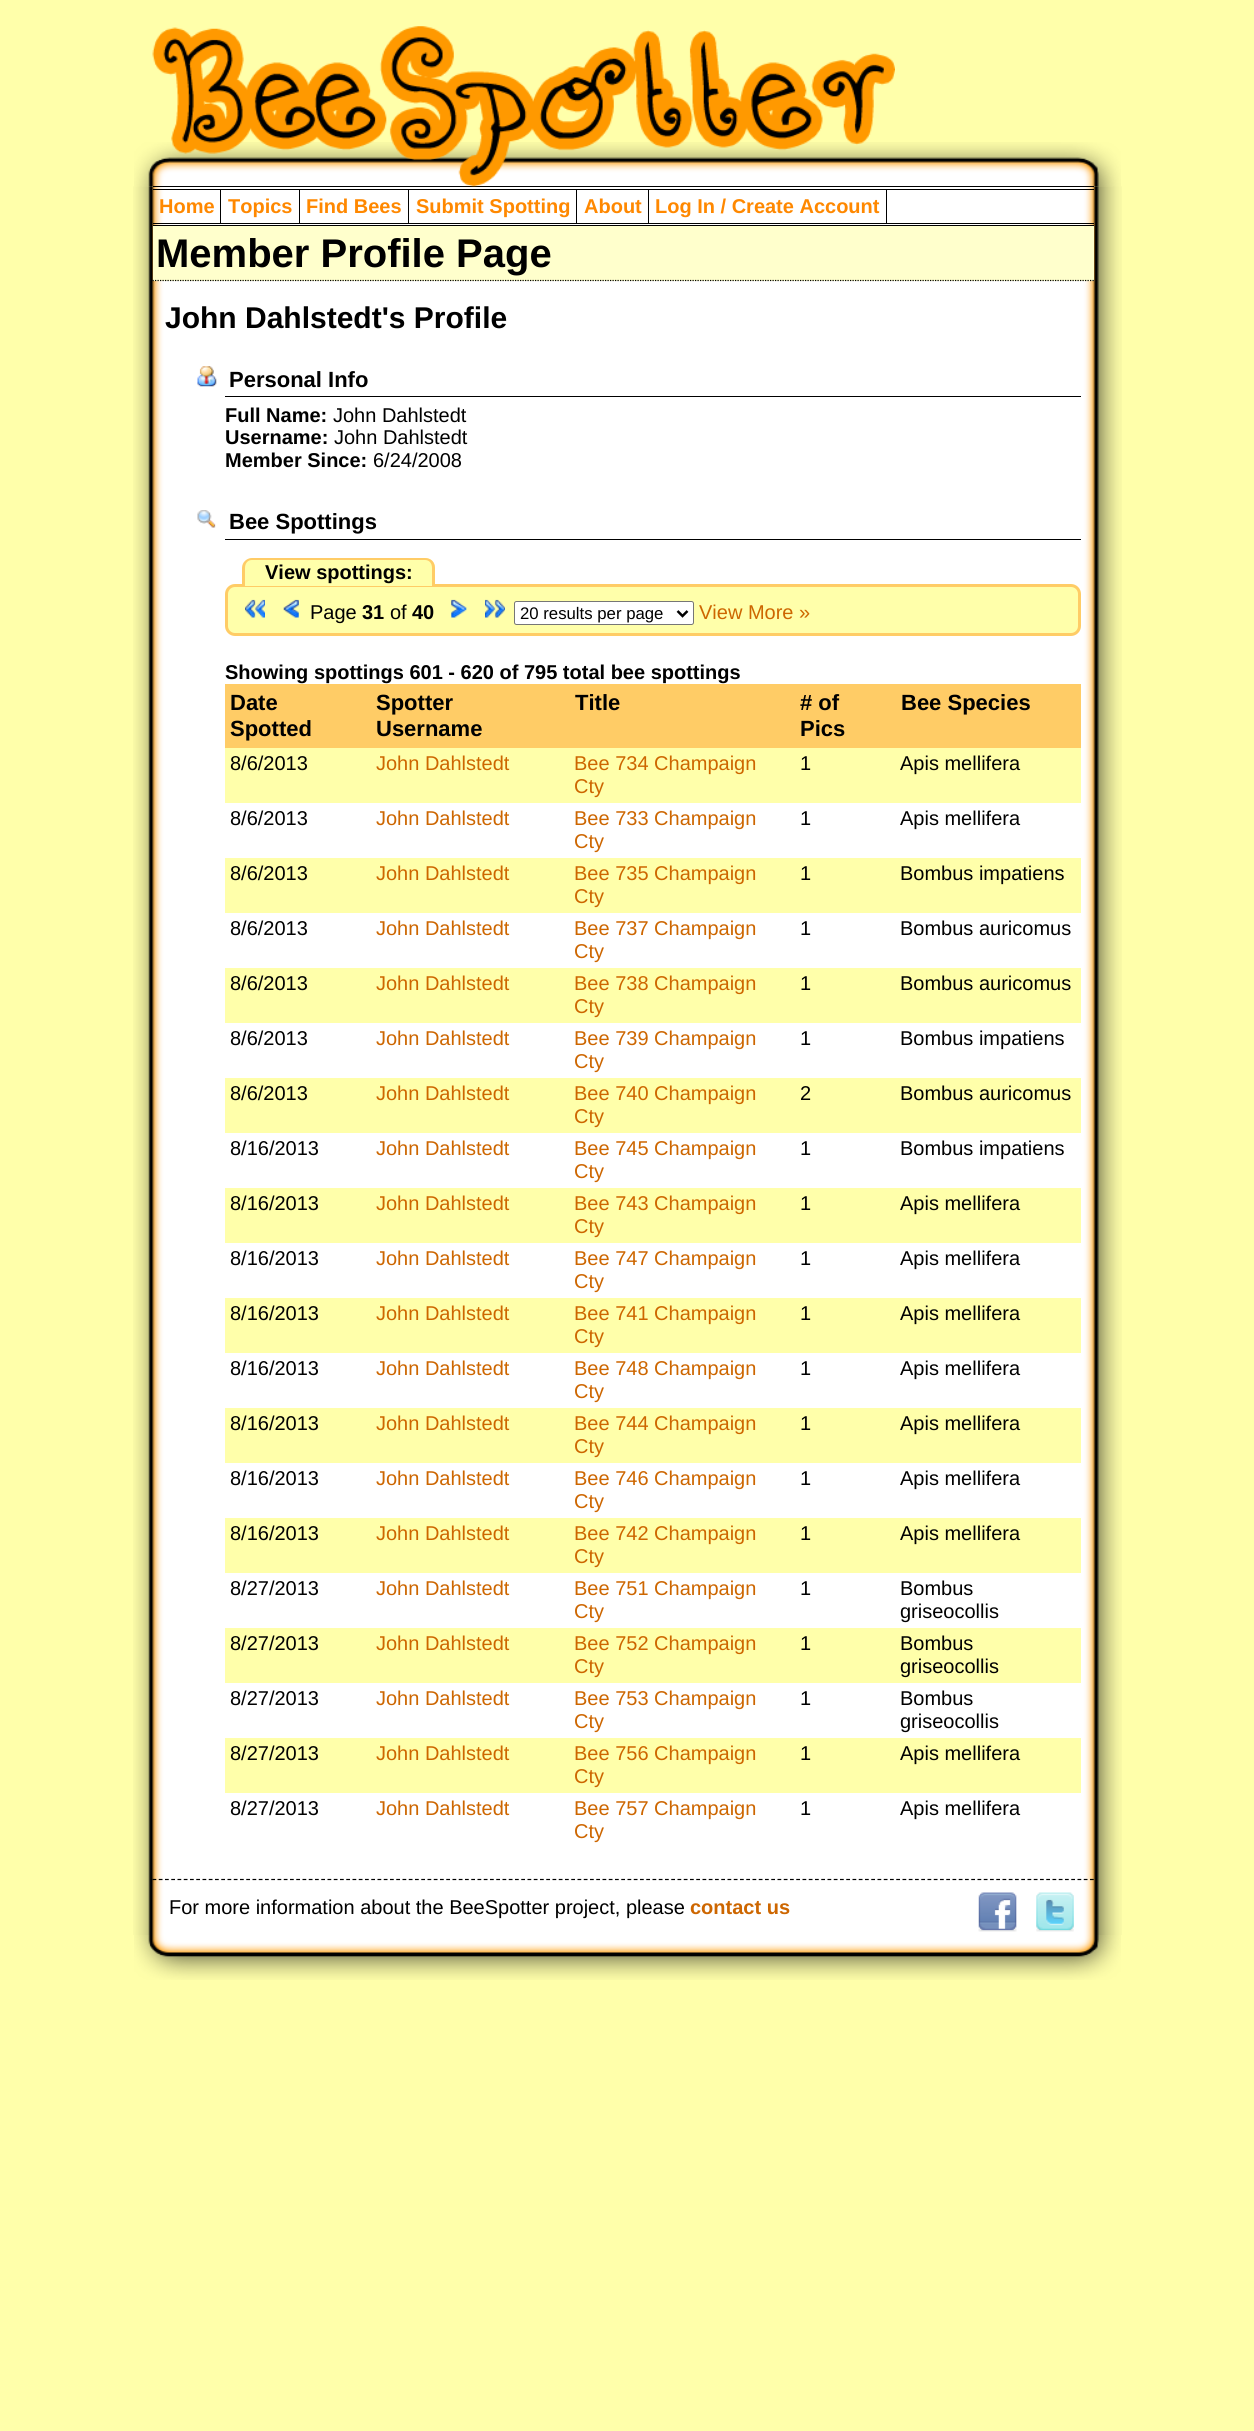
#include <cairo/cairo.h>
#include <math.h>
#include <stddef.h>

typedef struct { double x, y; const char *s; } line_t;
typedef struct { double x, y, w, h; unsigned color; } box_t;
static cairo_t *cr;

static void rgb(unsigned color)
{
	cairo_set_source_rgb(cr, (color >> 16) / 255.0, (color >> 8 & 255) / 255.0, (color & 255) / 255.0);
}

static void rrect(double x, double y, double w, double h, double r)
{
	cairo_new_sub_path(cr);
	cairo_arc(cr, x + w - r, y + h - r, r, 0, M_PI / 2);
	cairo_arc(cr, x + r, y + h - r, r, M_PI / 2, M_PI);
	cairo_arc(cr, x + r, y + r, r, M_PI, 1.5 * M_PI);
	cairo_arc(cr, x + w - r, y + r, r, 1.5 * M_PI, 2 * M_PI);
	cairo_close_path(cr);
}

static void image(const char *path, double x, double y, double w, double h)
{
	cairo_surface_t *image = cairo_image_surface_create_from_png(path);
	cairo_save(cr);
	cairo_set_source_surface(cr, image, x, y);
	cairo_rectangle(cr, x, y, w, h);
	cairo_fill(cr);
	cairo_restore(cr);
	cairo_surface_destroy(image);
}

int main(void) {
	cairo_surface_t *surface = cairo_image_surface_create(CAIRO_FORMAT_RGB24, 1254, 2431);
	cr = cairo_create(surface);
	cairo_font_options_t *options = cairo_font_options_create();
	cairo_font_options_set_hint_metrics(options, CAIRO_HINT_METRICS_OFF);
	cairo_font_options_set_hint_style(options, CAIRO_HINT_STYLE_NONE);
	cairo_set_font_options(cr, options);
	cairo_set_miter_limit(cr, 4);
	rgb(0xffffaa);
	cairo_paint(cr);
	image("img/1.png", 134, 142, 987, 45);
	image("img/3.png", 133, 186, 989, 1749);
	rgb(0x000000);
	cairo_rectangle(cr, 153, 186, 941, 1);
	cairo_fill(cr);
	image("img/2.png", 152, 26, 743, 161);
	{
		static const box_t items[] = {
			{153, 189, 941, 1, 0x000000},
			{153, 223, 941, 1, 0x000000},
			{153, 225, 941, 1, 0x000000},
			{220, 190, 1, 33, 0x000000},
			{299, 190, 1, 33, 0x000000},
			{408, 190, 1, 33, 0x000000},
			{576, 190, 1, 33, 0x000000},
			{648, 190, 1, 33, 0x000000},
			{886, 190, 1, 33, 0x000000},
			{153, 226, 941, 55, 0xffffcc},
		};
		for (size_t i = 0; i < sizeof items / sizeof *items; i++) {
			rgb(items[i].color);
			cairo_rectangle(cr, items[i].x, items[i].y, items[i].w, items[i].h);
			cairo_fill(cr);
		}
	}
	cairo_new_path(cr);
	cairo_move_to(cr, 152.5, 280.5);
	cairo_line_to(cr, 1094, 280.5);
	rgb(0x000000);
	cairo_set_line_width(cr, 1.2);
	cairo_set_dash(cr, (double[]){1.25, 1.25}, 2, 0);
	cairo_stroke(cr);
	image("img/4.png", 197, 366, 20, 21);
	cairo_rectangle(cr, 225, 396, 856, 1);
	cairo_fill(cr);
	image("img/5.png", 197, 510, 19, 18);
	cairo_rectangle(cr, 225, 539, 856, 1);
	cairo_fill(cr);
	rgb(0xffffaa);
	rrect(226.5, 585.5, 853, 49, 8.5);
	cairo_fill_preserve(cr);
	rgb(0xffcc66);
	cairo_set_line_width(cr, 3);
	cairo_set_dash(cr, NULL, 0, 0);
	cairo_stroke(cr);
	rgb(0xffffaa);
	cairo_new_path(cr);
	cairo_move_to(cr, 253, 558);
	cairo_line_to(cr, 425, 558);
	cairo_curve_to(cr, 430.5, 558, 435, 562.5, 435, 568);
	cairo_line_to(cr, 435, 586);
	cairo_line_to(cr, 243, 586);
	cairo_line_to(cr, 243, 568);
	cairo_curve_to(cr, 243, 562.5, 247.5, 558, 253, 558);
	cairo_close_path(cr);
	cairo_fill(cr);
	rgb(0xffcc66);
	cairo_set_fill_rule(cr, CAIRO_FILL_RULE_EVEN_ODD);
	cairo_new_path(cr);
	cairo_move_to(cr, 252, 558);
	cairo_line_to(cr, 425, 558);
	cairo_curve_to(cr, 431, 558, 435, 562, 435, 568);
	cairo_line_to(cr, 435, 586);
	cairo_line_to(cr, 242, 586);
	cairo_line_to(cr, 242, 568);
	cairo_curve_to(cr, 242, 562, 247, 558, 252, 558);
	cairo_close_path(cr);
	cairo_move_to(cr, 252, 560);
	cairo_line_to(cr, 425, 560);
	cairo_curve_to(cr, 429, 560, 432, 563, 432, 568);
	cairo_line_to(cr, 432, 586);
	cairo_line_to(cr, 245, 586);
	cairo_line_to(cr, 245, 568);
	cairo_curve_to(cr, 245, 563, 248, 560, 252, 560);
	cairo_close_path(cr);
	cairo_fill(cr);
	image("img/6.png", 245, 599, 20, 19);
	image("img/7.png", 283, 599, 16, 19);
	image("img/8.png", 451, 599, 16, 19);
	image("img/9.png", 485, 599, 20, 19);
	rgb(0xffffff);
	rrect(514.5, 601.5, 179, 23, 2);
	cairo_fill_preserve(cr);
	rgb(0x767676);
	cairo_set_line_width(cr, 1);
	cairo_stroke(cr);
	cairo_new_path(cr);
	cairo_move_to(cr, 677.5, 611);
	cairo_line_to(cr, 682.5, 616);
	cairo_line_to(cr, 687.5, 611);
	rgb(0x000000);
	cairo_set_line_width(cr, 2.5);
	cairo_stroke(cr);
	{
		static const box_t items[] = {
			{225, 684, 856, 64, 0xffcc66},
			{225, 748, 856, 55, 0xffffaa},
			{225, 858, 856, 55, 0xffffaa},
			{225, 968, 856, 55, 0xffffaa},
			{225, 1078, 856, 55, 0xffffaa},
			{225, 1188, 856, 55, 0xffffaa},
			{225, 1298, 856, 55, 0xffffaa},
			{225, 1408, 856, 55, 0xffffaa},
			{225, 1518, 856, 55, 0xffffaa},
			{225, 1628, 856, 55, 0xffffaa},
			{225, 1738, 856, 55, 0xffffaa},
		};
		for (size_t i = 0; i < sizeof items / sizeof *items; i++) {
			rgb(items[i].color);
			cairo_rectangle(cr, items[i].x, items[i].y, items[i].w, items[i].h);
			cairo_fill(cr);
		}
	}
	cairo_new_path(cr);
	cairo_move_to(cr, 152.5, 1879.5);
	cairo_line_to(cr, 1094, 1879.5);
	rgb(0x000000);
	cairo_set_line_width(cr, 1.2);
	cairo_set_dash(cr, (double[]){3.75, 2.5}, 2, 0);
	cairo_stroke(cr);
	image("img/10.png", 978, 1892, 39, 40);
	image("img/11.png", 1036, 1892, 38, 40);
	image("img/12.png", 134, 1935, 987, 45);
	cairo_select_font_face(cr, "Liberation Sans", CAIRO_FONT_SLANT_NORMAL, CAIRO_FONT_WEIGHT_BOLD);
	cairo_set_font_size(cr, 20);
	rgb(0xff8800);
	{
		static const line_t items[] = {
			{159, 213, "Home"},
			{228, 213, "Topics"},
			{306, 213, "Find Bees"},
			{416, 213, "Submit Spotting"},
			{584, 213, "About"},
			{655, 213, "Log In / Create Account"},
		};
		for (size_t i = 0; i < sizeof items / sizeof *items; i++) {
			cairo_move_to(cr, items[i].x, items[i].y);
			cairo_show_text(cr, items[i].s);
		}
	}
	cairo_set_font_size(cr, 40);
	rgb(0x000000);
	cairo_move_to(cr, 156, 267);
	cairo_show_text(cr, "Member Profile Page");
	cairo_set_font_size(cr, 30);
	cairo_move_to(cr, 165, 328);
	cairo_show_text(cr, "John Dahlstedt's Profile");
	cairo_set_font_size(cr, 22);
	cairo_move_to(cr, 229, 387);
	cairo_show_text(cr, "Personal Info");
	cairo_set_font_size(cr, 20);
	cairo_move_to(cr, 225, 422);
	cairo_show_text(cr, "Full Name:");
	cairo_select_font_face(cr, "Liberation Sans", CAIRO_FONT_SLANT_NORMAL, CAIRO_FONT_WEIGHT_NORMAL);
	cairo_move_to(cr, 333, 422);
	cairo_show_text(cr, "John Dahlstedt");
	cairo_select_font_face(cr, "Liberation Sans", CAIRO_FONT_SLANT_NORMAL, CAIRO_FONT_WEIGHT_BOLD);
	cairo_move_to(cr, 225, 444);
	cairo_show_text(cr, "Username:");
	cairo_select_font_face(cr, "Liberation Sans", CAIRO_FONT_SLANT_NORMAL, CAIRO_FONT_WEIGHT_NORMAL);
	cairo_move_to(cr, 334, 444);
	cairo_show_text(cr, "John Dahlstedt");
	cairo_select_font_face(cr, "Liberation Sans", CAIRO_FONT_SLANT_NORMAL, CAIRO_FONT_WEIGHT_BOLD);
	cairo_move_to(cr, 225, 467);
	cairo_show_text(cr, "Member Since:");
	cairo_select_font_face(cr, "Liberation Sans", CAIRO_FONT_SLANT_NORMAL, CAIRO_FONT_WEIGHT_NORMAL);
	cairo_move_to(cr, 373, 467);
	cairo_show_text(cr, "6/24/2008");
	cairo_select_font_face(cr, "Liberation Sans", CAIRO_FONT_SLANT_NORMAL, CAIRO_FONT_WEIGHT_BOLD);
	cairo_set_font_size(cr, 22);
	cairo_move_to(cr, 229, 529);
	cairo_show_text(cr, "Bee Spottings");
	cairo_set_font_size(cr, 20);
	cairo_move_to(cr, 265, 579);
	cairo_show_text(cr, "View spottings:");
	cairo_select_font_face(cr, "Liberation Sans", CAIRO_FONT_SLANT_NORMAL, CAIRO_FONT_WEIGHT_NORMAL);
	cairo_move_to(cr, 310, 619);
	cairo_show_text(cr, "Page");
	cairo_select_font_face(cr, "Liberation Sans", CAIRO_FONT_SLANT_NORMAL, CAIRO_FONT_WEIGHT_BOLD);
	cairo_move_to(cr, 362, 619);
	cairo_show_text(cr, "31");
	cairo_select_font_face(cr, "Liberation Sans", CAIRO_FONT_SLANT_NORMAL, CAIRO_FONT_WEIGHT_NORMAL);
	cairo_move_to(cr, 390, 619);
	cairo_show_text(cr, "of");
	cairo_select_font_face(cr, "Liberation Sans", CAIRO_FONT_SLANT_NORMAL, CAIRO_FONT_WEIGHT_BOLD);
	cairo_move_to(cr, 412, 619);
	cairo_show_text(cr, "40");
	cairo_select_font_face(cr, "Liberation Sans", CAIRO_FONT_SLANT_NORMAL, CAIRO_FONT_WEIGHT_NORMAL);
	cairo_set_font_size(cr, 16.75);
	cairo_move_to(cr, 520, 619);
	cairo_show_text(cr, "20 results per page");
	cairo_set_font_size(cr, 20);
	rgb(0xcd6600);
	cairo_move_to(cr, 699, 619);
	cairo_show_text(cr, "View More »");
	cairo_select_font_face(cr, "Liberation Sans", CAIRO_FONT_SLANT_NORMAL, CAIRO_FONT_WEIGHT_BOLD);
	rgb(0x000000);
	cairo_move_to(cr, 225, 679);
	cairo_show_text(cr, "Showing spottings 601 - 620 of 795 total bee spottings");
	cairo_set_font_size(cr, 22);
	{
		static const line_t items[] = {
			{230, 710, "Date"},
			{230, 736, "Spotted"},
			{376, 710, "Spotter"},
			{376, 736, "Username"},
			{575, 710, "Title"},
			{800, 710, "# of"},
			{800, 736, "Pics"},
			{901, 710, "Bee Species"},
		};
		for (size_t i = 0; i < sizeof items / sizeof *items; i++) {
			cairo_move_to(cr, items[i].x, items[i].y);
			cairo_show_text(cr, items[i].s);
		}
	}
	cairo_select_font_face(cr, "Liberation Sans", CAIRO_FONT_SLANT_NORMAL, CAIRO_FONT_WEIGHT_NORMAL);
	cairo_set_font_size(cr, 20);
	cairo_move_to(cr, 230, 770);
	cairo_show_text(cr, "8/6/2013");
	rgb(0xcd6600);
	{
		static const line_t items[] = {
			{376, 770, "John Dahlstedt"},
			{574, 770, "Bee 734 Champaign"},
			{574, 793, "Cty"},
		};
		for (size_t i = 0; i < sizeof items / sizeof *items; i++) {
			cairo_move_to(cr, items[i].x, items[i].y);
			cairo_show_text(cr, items[i].s);
		}
	}
	rgb(0x000000);
	{
		static const line_t items[] = {
			{800, 770, "1"},
			{900, 770, "Apis mellifera"},
			{230, 825, "8/6/2013"},
		};
		for (size_t i = 0; i < sizeof items / sizeof *items; i++) {
			cairo_move_to(cr, items[i].x, items[i].y);
			cairo_show_text(cr, items[i].s);
		}
	}
	rgb(0xcd6600);
	{
		static const line_t items[] = {
			{376, 825, "John Dahlstedt"},
			{574, 825, "Bee 733 Champaign"},
			{574, 848, "Cty"},
		};
		for (size_t i = 0; i < sizeof items / sizeof *items; i++) {
			cairo_move_to(cr, items[i].x, items[i].y);
			cairo_show_text(cr, items[i].s);
		}
	}
	rgb(0x000000);
	{
		static const line_t items[] = {
			{800, 825, "1"},
			{900, 825, "Apis mellifera"},
			{230, 880, "8/6/2013"},
		};
		for (size_t i = 0; i < sizeof items / sizeof *items; i++) {
			cairo_move_to(cr, items[i].x, items[i].y);
			cairo_show_text(cr, items[i].s);
		}
	}
	rgb(0xcd6600);
	{
		static const line_t items[] = {
			{376, 880, "John Dahlstedt"},
			{574, 880, "Bee 735 Champaign"},
			{574, 903, "Cty"},
		};
		for (size_t i = 0; i < sizeof items / sizeof *items; i++) {
			cairo_move_to(cr, items[i].x, items[i].y);
			cairo_show_text(cr, items[i].s);
		}
	}
	rgb(0x000000);
	{
		static const line_t items[] = {
			{800, 880, "1"},
			{900, 880, "Bombus impatiens"},
			{230, 935, "8/6/2013"},
		};
		for (size_t i = 0; i < sizeof items / sizeof *items; i++) {
			cairo_move_to(cr, items[i].x, items[i].y);
			cairo_show_text(cr, items[i].s);
		}
	}
	rgb(0xcd6600);
	{
		static const line_t items[] = {
			{376, 935, "John Dahlstedt"},
			{574, 935, "Bee 737 Champaign"},
			{574, 958, "Cty"},
		};
		for (size_t i = 0; i < sizeof items / sizeof *items; i++) {
			cairo_move_to(cr, items[i].x, items[i].y);
			cairo_show_text(cr, items[i].s);
		}
	}
	rgb(0x000000);
	{
		static const line_t items[] = {
			{800, 935, "1"},
			{900, 935, "Bombus auricomus"},
			{230, 990, "8/6/2013"},
		};
		for (size_t i = 0; i < sizeof items / sizeof *items; i++) {
			cairo_move_to(cr, items[i].x, items[i].y);
			cairo_show_text(cr, items[i].s);
		}
	}
	rgb(0xcd6600);
	{
		static const line_t items[] = {
			{376, 990, "John Dahlstedt"},
			{574, 990, "Bee 738 Champaign"},
			{574, 1013, "Cty"},
		};
		for (size_t i = 0; i < sizeof items / sizeof *items; i++) {
			cairo_move_to(cr, items[i].x, items[i].y);
			cairo_show_text(cr, items[i].s);
		}
	}
	rgb(0x000000);
	{
		static const line_t items[] = {
			{800, 990, "1"},
			{900, 990, "Bombus auricomus"},
			{230, 1045, "8/6/2013"},
		};
		for (size_t i = 0; i < sizeof items / sizeof *items; i++) {
			cairo_move_to(cr, items[i].x, items[i].y);
			cairo_show_text(cr, items[i].s);
		}
	}
	rgb(0xcd6600);
	{
		static const line_t items[] = {
			{376, 1045, "John Dahlstedt"},
			{574, 1045, "Bee 739 Champaign"},
			{574, 1068, "Cty"},
		};
		for (size_t i = 0; i < sizeof items / sizeof *items; i++) {
			cairo_move_to(cr, items[i].x, items[i].y);
			cairo_show_text(cr, items[i].s);
		}
	}
	rgb(0x000000);
	{
		static const line_t items[] = {
			{800, 1045, "1"},
			{900, 1045, "Bombus impatiens"},
			{230, 1100, "8/6/2013"},
		};
		for (size_t i = 0; i < sizeof items / sizeof *items; i++) {
			cairo_move_to(cr, items[i].x, items[i].y);
			cairo_show_text(cr, items[i].s);
		}
	}
	rgb(0xcd6600);
	{
		static const line_t items[] = {
			{376, 1100, "John Dahlstedt"},
			{574, 1100, "Bee 740 Champaign"},
			{574, 1123, "Cty"},
		};
		for (size_t i = 0; i < sizeof items / sizeof *items; i++) {
			cairo_move_to(cr, items[i].x, items[i].y);
			cairo_show_text(cr, items[i].s);
		}
	}
	rgb(0x000000);
	{
		static const line_t items[] = {
			{800, 1100, "2"},
			{900, 1100, "Bombus auricomus"},
			{230, 1155, "8/16/2013"},
		};
		for (size_t i = 0; i < sizeof items / sizeof *items; i++) {
			cairo_move_to(cr, items[i].x, items[i].y);
			cairo_show_text(cr, items[i].s);
		}
	}
	rgb(0xcd6600);
	{
		static const line_t items[] = {
			{376, 1155, "John Dahlstedt"},
			{574, 1155, "Bee 745 Champaign"},
			{574, 1178, "Cty"},
		};
		for (size_t i = 0; i < sizeof items / sizeof *items; i++) {
			cairo_move_to(cr, items[i].x, items[i].y);
			cairo_show_text(cr, items[i].s);
		}
	}
	rgb(0x000000);
	{
		static const line_t items[] = {
			{800, 1155, "1"},
			{900, 1155, "Bombus impatiens"},
			{230, 1210, "8/16/2013"},
		};
		for (size_t i = 0; i < sizeof items / sizeof *items; i++) {
			cairo_move_to(cr, items[i].x, items[i].y);
			cairo_show_text(cr, items[i].s);
		}
	}
	rgb(0xcd6600);
	{
		static const line_t items[] = {
			{376, 1210, "John Dahlstedt"},
			{574, 1210, "Bee 743 Champaign"},
			{574, 1233, "Cty"},
		};
		for (size_t i = 0; i < sizeof items / sizeof *items; i++) {
			cairo_move_to(cr, items[i].x, items[i].y);
			cairo_show_text(cr, items[i].s);
		}
	}
	rgb(0x000000);
	{
		static const line_t items[] = {
			{800, 1210, "1"},
			{900, 1210, "Apis mellifera"},
			{230, 1265, "8/16/2013"},
		};
		for (size_t i = 0; i < sizeof items / sizeof *items; i++) {
			cairo_move_to(cr, items[i].x, items[i].y);
			cairo_show_text(cr, items[i].s);
		}
	}
	rgb(0xcd6600);
	{
		static const line_t items[] = {
			{376, 1265, "John Dahlstedt"},
			{574, 1265, "Bee 747 Champaign"},
			{574, 1288, "Cty"},
		};
		for (size_t i = 0; i < sizeof items / sizeof *items; i++) {
			cairo_move_to(cr, items[i].x, items[i].y);
			cairo_show_text(cr, items[i].s);
		}
	}
	rgb(0x000000);
	{
		static const line_t items[] = {
			{800, 1265, "1"},
			{900, 1265, "Apis mellifera"},
			{230, 1320, "8/16/2013"},
		};
		for (size_t i = 0; i < sizeof items / sizeof *items; i++) {
			cairo_move_to(cr, items[i].x, items[i].y);
			cairo_show_text(cr, items[i].s);
		}
	}
	rgb(0xcd6600);
	{
		static const line_t items[] = {
			{376, 1320, "John Dahlstedt"},
			{574, 1320, "Bee 741 Champaign"},
			{574, 1343, "Cty"},
		};
		for (size_t i = 0; i < sizeof items / sizeof *items; i++) {
			cairo_move_to(cr, items[i].x, items[i].y);
			cairo_show_text(cr, items[i].s);
		}
	}
	rgb(0x000000);
	{
		static const line_t items[] = {
			{800, 1320, "1"},
			{900, 1320, "Apis mellifera"},
			{230, 1375, "8/16/2013"},
		};
		for (size_t i = 0; i < sizeof items / sizeof *items; i++) {
			cairo_move_to(cr, items[i].x, items[i].y);
			cairo_show_text(cr, items[i].s);
		}
	}
	rgb(0xcd6600);
	{
		static const line_t items[] = {
			{376, 1375, "John Dahlstedt"},
			{574, 1375, "Bee 748 Champaign"},
			{574, 1398, "Cty"},
		};
		for (size_t i = 0; i < sizeof items / sizeof *items; i++) {
			cairo_move_to(cr, items[i].x, items[i].y);
			cairo_show_text(cr, items[i].s);
		}
	}
	rgb(0x000000);
	{
		static const line_t items[] = {
			{800, 1375, "1"},
			{900, 1375, "Apis mellifera"},
			{230, 1430, "8/16/2013"},
		};
		for (size_t i = 0; i < sizeof items / sizeof *items; i++) {
			cairo_move_to(cr, items[i].x, items[i].y);
			cairo_show_text(cr, items[i].s);
		}
	}
	rgb(0xcd6600);
	{
		static const line_t items[] = {
			{376, 1430, "John Dahlstedt"},
			{574, 1430, "Bee 744 Champaign"},
			{574, 1453, "Cty"},
		};
		for (size_t i = 0; i < sizeof items / sizeof *items; i++) {
			cairo_move_to(cr, items[i].x, items[i].y);
			cairo_show_text(cr, items[i].s);
		}
	}
	rgb(0x000000);
	{
		static const line_t items[] = {
			{800, 1430, "1"},
			{900, 1430, "Apis mellifera"},
			{230, 1485, "8/16/2013"},
		};
		for (size_t i = 0; i < sizeof items / sizeof *items; i++) {
			cairo_move_to(cr, items[i].x, items[i].y);
			cairo_show_text(cr, items[i].s);
		}
	}
	rgb(0xcd6600);
	{
		static const line_t items[] = {
			{376, 1485, "John Dahlstedt"},
			{574, 1485, "Bee 746 Champaign"},
			{574, 1508, "Cty"},
		};
		for (size_t i = 0; i < sizeof items / sizeof *items; i++) {
			cairo_move_to(cr, items[i].x, items[i].y);
			cairo_show_text(cr, items[i].s);
		}
	}
	rgb(0x000000);
	{
		static const line_t items[] = {
			{800, 1485, "1"},
			{900, 1485, "Apis mellifera"},
			{230, 1540, "8/16/2013"},
		};
		for (size_t i = 0; i < sizeof items / sizeof *items; i++) {
			cairo_move_to(cr, items[i].x, items[i].y);
			cairo_show_text(cr, items[i].s);
		}
	}
	rgb(0xcd6600);
	{
		static const line_t items[] = {
			{376, 1540, "John Dahlstedt"},
			{574, 1540, "Bee 742 Champaign"},
			{574, 1563, "Cty"},
		};
		for (size_t i = 0; i < sizeof items / sizeof *items; i++) {
			cairo_move_to(cr, items[i].x, items[i].y);
			cairo_show_text(cr, items[i].s);
		}
	}
	rgb(0x000000);
	{
		static const line_t items[] = {
			{800, 1540, "1"},
			{900, 1540, "Apis mellifera"},
			{230, 1595, "8/27/2013"},
		};
		for (size_t i = 0; i < sizeof items / sizeof *items; i++) {
			cairo_move_to(cr, items[i].x, items[i].y);
			cairo_show_text(cr, items[i].s);
		}
	}
	rgb(0xcd6600);
	{
		static const line_t items[] = {
			{376, 1595, "John Dahlstedt"},
			{574, 1595, "Bee 751 Champaign"},
			{574, 1618, "Cty"},
		};
		for (size_t i = 0; i < sizeof items / sizeof *items; i++) {
			cairo_move_to(cr, items[i].x, items[i].y);
			cairo_show_text(cr, items[i].s);
		}
	}
	rgb(0x000000);
	{
		static const line_t items[] = {
			{800, 1595, "1"},
			{900, 1595, "Bombus"},
			{900, 1618, "griseocollis"},
			{230, 1650, "8/27/2013"},
		};
		for (size_t i = 0; i < sizeof items / sizeof *items; i++) {
			cairo_move_to(cr, items[i].x, items[i].y);
			cairo_show_text(cr, items[i].s);
		}
	}
	rgb(0xcd6600);
	{
		static const line_t items[] = {
			{376, 1650, "John Dahlstedt"},
			{574, 1650, "Bee 752 Champaign"},
			{574, 1673, "Cty"},
		};
		for (size_t i = 0; i < sizeof items / sizeof *items; i++) {
			cairo_move_to(cr, items[i].x, items[i].y);
			cairo_show_text(cr, items[i].s);
		}
	}
	rgb(0x000000);
	{
		static const line_t items[] = {
			{800, 1650, "1"},
			{900, 1650, "Bombus"},
			{900, 1673, "griseocollis"},
			{230, 1705, "8/27/2013"},
		};
		for (size_t i = 0; i < sizeof items / sizeof *items; i++) {
			cairo_move_to(cr, items[i].x, items[i].y);
			cairo_show_text(cr, items[i].s);
		}
	}
	rgb(0xcd6600);
	{
		static const line_t items[] = {
			{376, 1705, "John Dahlstedt"},
			{574, 1705, "Bee 753 Champaign"},
			{574, 1728, "Cty"},
		};
		for (size_t i = 0; i < sizeof items / sizeof *items; i++) {
			cairo_move_to(cr, items[i].x, items[i].y);
			cairo_show_text(cr, items[i].s);
		}
	}
	rgb(0x000000);
	{
		static const line_t items[] = {
			{800, 1705, "1"},
			{900, 1705, "Bombus"},
			{900, 1728, "griseocollis"},
			{230, 1760, "8/27/2013"},
		};
		for (size_t i = 0; i < sizeof items / sizeof *items; i++) {
			cairo_move_to(cr, items[i].x, items[i].y);
			cairo_show_text(cr, items[i].s);
		}
	}
	rgb(0xcd6600);
	{
		static const line_t items[] = {
			{376, 1760, "John Dahlstedt"},
			{574, 1760, "Bee 756 Champaign"},
			{574, 1783, "Cty"},
		};
		for (size_t i = 0; i < sizeof items / sizeof *items; i++) {
			cairo_move_to(cr, items[i].x, items[i].y);
			cairo_show_text(cr, items[i].s);
		}
	}
	rgb(0x000000);
	{
		static const line_t items[] = {
			{800, 1760, "1"},
			{900, 1760, "Apis mellifera"},
			{230, 1815, "8/27/2013"},
		};
		for (size_t i = 0; i < sizeof items / sizeof *items; i++) {
			cairo_move_to(cr, items[i].x, items[i].y);
			cairo_show_text(cr, items[i].s);
		}
	}
	rgb(0xcd6600);
	{
		static const line_t items[] = {
			{376, 1815, "John Dahlstedt"},
			{574, 1815, "Bee 757 Champaign"},
			{574, 1838, "Cty"},
		};
		for (size_t i = 0; i < sizeof items / sizeof *items; i++) {
			cairo_move_to(cr, items[i].x, items[i].y);
			cairo_show_text(cr, items[i].s);
		}
	}
	rgb(0x000000);
	{
		static const line_t items[] = {
			{800, 1815, "1"},
			{900, 1815, "Apis mellifera"},
			{169, 1914, "For more information about the BeeSpotter project, please"},
		};
		for (size_t i = 0; i < sizeof items / sizeof *items; i++) {
			cairo_move_to(cr, items[i].x, items[i].y);
			cairo_show_text(cr, items[i].s);
		}
	}
	cairo_select_font_face(cr, "Liberation Sans", CAIRO_FONT_SLANT_NORMAL, CAIRO_FONT_WEIGHT_BOLD);
	rgb(0xcd6600);
	cairo_move_to(cr, 690, 1914);
	cairo_show_text(cr, "contact us");
	cairo_surface_write_to_png(surface, "page.png");
	cairo_font_options_destroy(options);
	cairo_destroy(cr);
	cairo_surface_destroy(surface);
	return 0;
}
